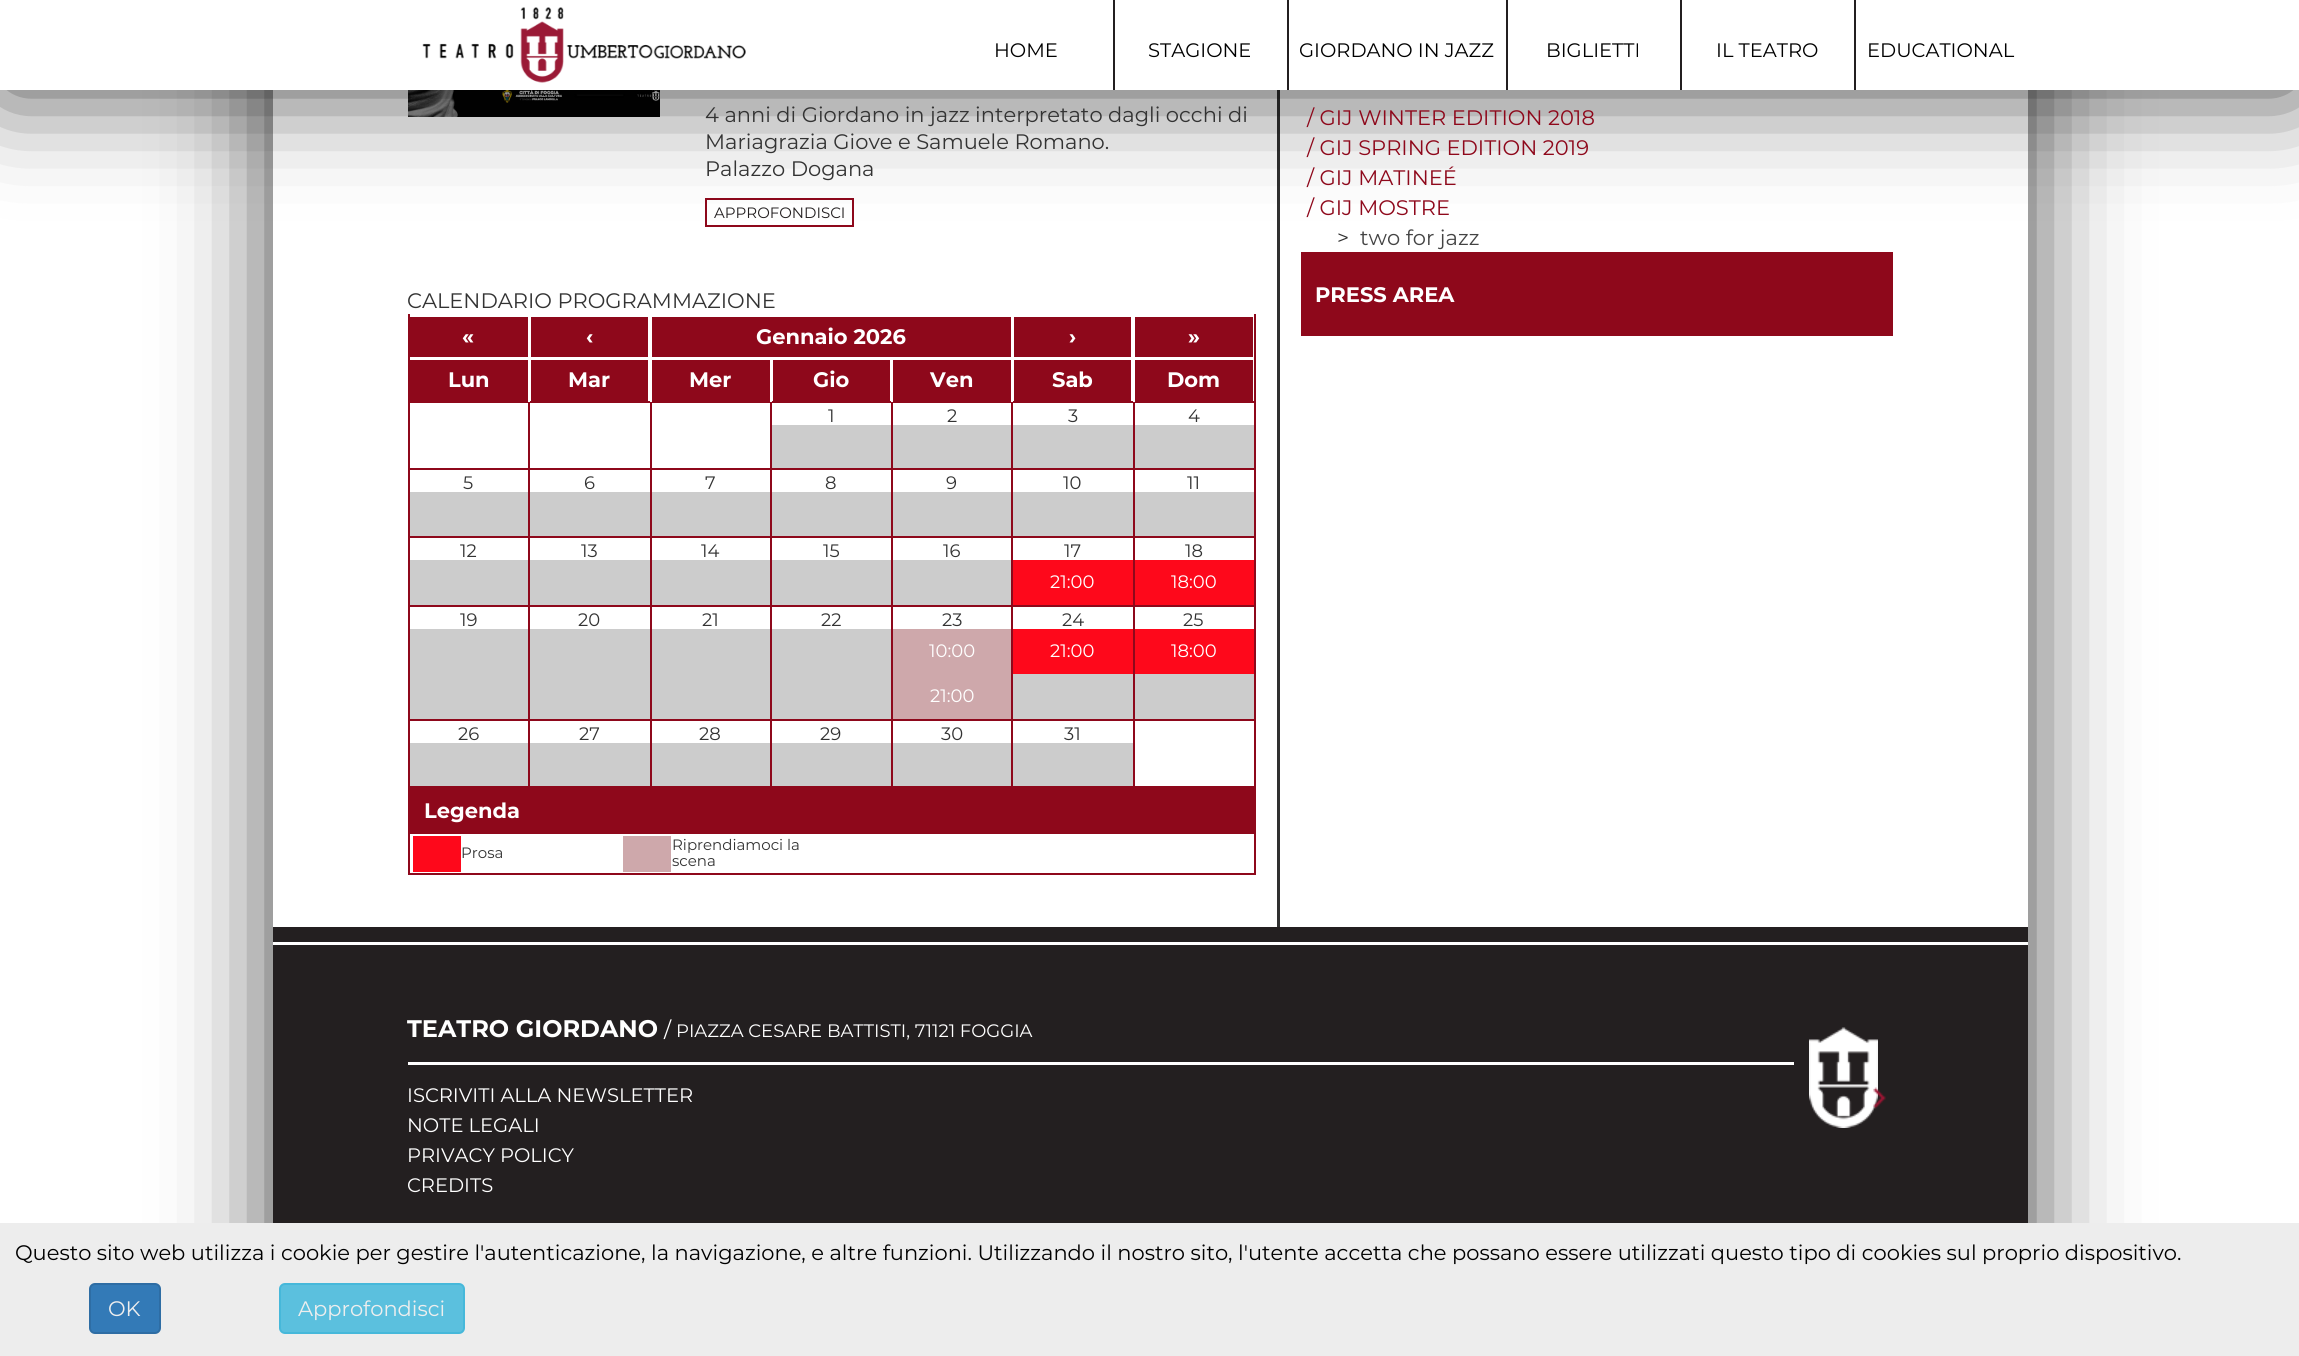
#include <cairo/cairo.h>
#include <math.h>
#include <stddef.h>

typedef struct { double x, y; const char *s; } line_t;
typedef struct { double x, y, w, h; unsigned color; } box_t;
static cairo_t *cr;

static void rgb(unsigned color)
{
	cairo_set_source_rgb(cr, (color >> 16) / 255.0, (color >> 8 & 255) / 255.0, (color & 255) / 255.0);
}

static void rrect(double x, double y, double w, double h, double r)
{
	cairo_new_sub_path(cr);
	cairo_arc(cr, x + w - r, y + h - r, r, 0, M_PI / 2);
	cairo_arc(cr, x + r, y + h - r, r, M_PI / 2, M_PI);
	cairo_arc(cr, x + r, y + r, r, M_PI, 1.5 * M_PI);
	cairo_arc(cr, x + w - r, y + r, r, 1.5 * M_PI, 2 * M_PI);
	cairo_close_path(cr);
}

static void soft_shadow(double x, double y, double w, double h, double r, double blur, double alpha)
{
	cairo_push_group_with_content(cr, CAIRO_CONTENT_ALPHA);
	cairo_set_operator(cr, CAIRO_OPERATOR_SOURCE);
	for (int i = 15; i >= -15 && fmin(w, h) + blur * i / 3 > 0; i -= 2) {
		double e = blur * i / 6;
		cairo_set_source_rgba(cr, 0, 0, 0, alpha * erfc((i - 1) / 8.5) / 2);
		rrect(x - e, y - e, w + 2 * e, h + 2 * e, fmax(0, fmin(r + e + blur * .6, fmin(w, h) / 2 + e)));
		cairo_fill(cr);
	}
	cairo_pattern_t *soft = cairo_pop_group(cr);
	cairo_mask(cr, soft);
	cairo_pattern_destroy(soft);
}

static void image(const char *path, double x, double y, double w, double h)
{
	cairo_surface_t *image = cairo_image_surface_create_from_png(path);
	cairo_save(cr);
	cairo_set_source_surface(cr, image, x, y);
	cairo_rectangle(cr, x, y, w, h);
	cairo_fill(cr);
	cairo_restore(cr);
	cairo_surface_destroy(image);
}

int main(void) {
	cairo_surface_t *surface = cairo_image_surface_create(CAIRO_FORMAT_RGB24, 2299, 1356);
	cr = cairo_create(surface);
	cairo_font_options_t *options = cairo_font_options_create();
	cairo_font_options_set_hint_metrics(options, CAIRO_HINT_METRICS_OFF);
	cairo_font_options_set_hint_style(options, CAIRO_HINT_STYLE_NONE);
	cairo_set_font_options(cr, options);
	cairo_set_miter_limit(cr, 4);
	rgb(0xffffff);
	cairo_paint(cr);
	cairo_save(cr);
	cairo_set_fill_rule(cr, CAIRO_FILL_RULE_EVEN_ODD);
	cairo_new_path(cr);
	cairo_move_to(cr, 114, 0);
	cairo_line_to(cr, 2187, 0);
	cairo_line_to(cr, 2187, 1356);
	cairo_line_to(cr, 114, 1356);
	cairo_close_path(cr);
	cairo_move_to(cr, 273, -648);
	cairo_line_to(cr, 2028, -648);
	cairo_line_to(cr, 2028, 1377);
	cairo_line_to(cr, 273, 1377);
	cairo_close_path(cr);
	cairo_clip(cr);
	rgb(0x000000);
	soft_shadow(273, -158, 1755, 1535, 0, 52.5, 0.75);
	cairo_restore(cr);
	rgb(0x303030);
	cairo_rectangle(cr, 1277, 90, 3, 837);
	cairo_fill(cr);
	image("img/2.png", 408, 90, 252, 27);
	cairo_rectangle(cr, 706, 199, 147, 27);
	rgb(0x8e081b);
	cairo_stroke(cr);
	rgb(0x000000);
	soft_shadow(0, 0, 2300, 90, 0, 52.5, 0.75);
	rgb(0xffffff);
	cairo_rectangle(cr, 0, 0, 2299, 90);
	cairo_fill(cr);
	image("img/1.png", 422, 7, 324, 76);
	{
		static const box_t items[] = {
			{1113, 0, 743, 90, 0x231f20},
			{1115, 0, 172, 90, 0xffffff},
			{1289, 0, 217, 90, 0xffffff},
			{1508, 0, 172, 90, 0xffffff},
			{1682, 0, 172, 90, 0xffffff},
			{410, 317, 118, 40, 0x8e081b},
			{531, 317, 117, 40, 0x8e081b},
			{652, 317, 359, 40, 0x8e081b},
			{1014, 317, 117, 40, 0x8e081b},
			{1135, 317, 118, 40, 0x8e081b},
			{410, 360, 118, 41, 0x8e081b},
			{531, 360, 117, 41, 0x8e081b},
			{1133, 401, 123, 2, 0x8e081b},
			{1133, 468, 123, 2, 0x8e081b},
			{1133, 536, 123, 2, 0x8e081b},
			{1133, 605, 123, 2, 0x8e081b},
			{1133, 719, 123, 2, 0x8e081b},
			{1254, 719, 2, 69, 0x8e081b},
			{1133, 786, 123, 2, 0x8e081b},
			{1133, 719, 2, 69, 0x8e081b},
			{1011, 719, 123, 2, 0x8e081b},
			{1133, 605, 2, 115, 0x8e081b},
			{1011, 605, 123, 2, 0x8e081b},
			{1133, 536, 2, 70, 0x8e081b},
			{1011, 536, 123, 2, 0x8e081b},
			{1133, 468, 2, 69, 0x8e081b},
			{1011, 468, 123, 2, 0x8e081b},
			{1133, 401, 2, 69, 0x8e081b},
			{1011, 401, 123, 2, 0x8e081b},
			{1011, 786, 123, 2, 0x8e081b},
			{1011, 719, 2, 69, 0x8e081b},
			{891, 719, 122, 2, 0x8e081b},
			{1011, 605, 2, 115, 0x8e081b},
			{891, 605, 122, 2, 0x8e081b},
			{1011, 536, 2, 70, 0x8e081b},
			{891, 536, 122, 2, 0x8e081b},
			{1011, 468, 2, 69, 0x8e081b},
			{891, 468, 122, 2, 0x8e081b},
			{1011, 401, 2, 69, 0x8e081b},
			{891, 401, 122, 2, 0x8e081b},
			{891, 786, 122, 2, 0x8e081b},
			{891, 719, 2, 69, 0x8e081b},
			{770, 719, 123, 2, 0x8e081b},
			{891, 605, 2, 115, 0x8e081b},
			{770, 605, 123, 2, 0x8e081b},
			{891, 536, 2, 70, 0x8e081b},
			{770, 536, 123, 2, 0x8e081b},
			{891, 468, 2, 69, 0x8e081b},
			{770, 468, 123, 2, 0x8e081b},
			{891, 401, 2, 69, 0x8e081b},
			{770, 401, 123, 2, 0x8e081b},
			{770, 786, 123, 2, 0x8e081b},
			{770, 719, 2, 69, 0x8e081b},
			{650, 719, 121, 2, 0x8e081b},
			{770, 605, 2, 115, 0x8e081b},
			{650, 605, 121, 2, 0x8e081b},
			{770, 536, 2, 70, 0x8e081b},
			{650, 536, 121, 2, 0x8e081b},
			{770, 468, 2, 69, 0x8e081b},
			{650, 468, 121, 2, 0x8e081b},
			{770, 401, 2, 69, 0x8e081b},
			{650, 401, 121, 2, 0x8e081b},
			{650, 786, 121, 2, 0x8e081b},
			{650, 719, 2, 69, 0x8e081b},
			{528, 719, 123, 2, 0x8e081b},
			{650, 605, 2, 115, 0x8e081b},
			{528, 605, 123, 2, 0x8e081b},
			{650, 536, 2, 70, 0x8e081b},
			{528, 536, 123, 2, 0x8e081b},
			{650, 468, 2, 69, 0x8e081b},
			{528, 468, 123, 2, 0x8e081b},
			{650, 401, 2, 69, 0x8e081b},
			{528, 401, 123, 2, 0x8e081b},
			{528, 786, 123, 2, 0x8e081b},
			{528, 719, 2, 69, 0x8e081b},
			{408, 719, 122, 2, 0x8e081b},
			{528, 605, 2, 115, 0x8e081b},
			{408, 605, 122, 2, 0x8e081b},
			{528, 536, 2, 70, 0x8e081b},
			{408, 536, 122, 2, 0x8e081b},
			{528, 468, 2, 69, 0x8e081b},
			{408, 468, 122, 2, 0x8e081b},
			{528, 401, 2, 69, 0x8e081b},
			{408, 401, 122, 2, 0x8e081b},
			{528, 401, 2, 1, 0xffffff},
			{652, 360, 118, 41, 0x8e081b},
			{650, 401, 2, 1, 0xffffff},
			{773, 360, 117, 41, 0x8e081b},
			{770, 401, 2, 1, 0xffffff},
			{893, 360, 118, 41, 0x8e081b},
			{891, 401, 2, 1, 0xffffff},
			{1014, 360, 117, 41, 0x8e081b},
			{1011, 401, 2, 1, 0xffffff},
			{1135, 360, 118, 41, 0x8e081b},
			{1133, 401, 2, 1, 0xffffff},
			{408, 786, 122, 2, 0x8e081b},
			{408, 719, 2, 69, 0x8e081b},
			{408, 605, 2, 115, 0x8e081b},
			{408, 536, 2, 70, 0x8e081b},
			{408, 468, 2, 69, 0x8e081b},
			{408, 314, 2, 156, 0x8e081b},
			{772, 425, 119, 43, 0xcccccc},
			{893, 425, 118, 43, 0xcccccc},
			{1013, 425, 120, 43, 0xcccccc},
			{1135, 425, 119, 43, 0xcccccc},
			{1254, 605, 2, 115, 0x8e081b},
			{1254, 536, 2, 70, 0x8e081b},
			{1254, 468, 2, 69, 0x8e081b},
			{1254, 314, 2, 156, 0x8e081b},
			{410, 492, 118, 44, 0xcccccc},
			{530, 492, 120, 44, 0xcccccc},
			{652, 492, 118, 44, 0xcccccc},
			{772, 492, 119, 44, 0xcccccc},
			{893, 492, 118, 44, 0xcccccc},
			{1013, 492, 120, 44, 0xcccccc},
			{1135, 492, 119, 44, 0xcccccc},
			{410, 560, 118, 45, 0xcccccc},
			{530, 560, 120, 45, 0xcccccc},
			{652, 560, 118, 45, 0xcccccc},
			{772, 560, 119, 45, 0xcccccc},
			{893, 560, 118, 45, 0xcccccc},
			{1013, 560, 120, 45, 0xfe081b},
			{1135, 560, 119, 45, 0xfe081b},
			{410, 629, 118, 90, 0xcccccc},
			{530, 629, 120, 90, 0xcccccc},
			{652, 629, 118, 90, 0xcccccc},
			{772, 629, 119, 90, 0xcccccc},
			{893, 629, 118, 90, 0xcea8ab},
			{1013, 674, 120, 45, 0xcccccc},
			{1013, 629, 120, 45, 0xfe081b},
			{1135, 674, 119, 45, 0xcccccc},
			{1135, 629, 119, 45, 0xfe081b},
			{410, 743, 118, 43, 0xcccccc},
			{530, 743, 120, 43, 0xcccccc},
			{652, 743, 118, 43, 0xcccccc},
			{772, 743, 119, 43, 0xcccccc},
			{893, 743, 118, 43, 0xcccccc},
			{1013, 743, 120, 43, 0xcccccc},
		};
		for (size_t i = 0; i < sizeof items / sizeof *items; i++) {
			rgb(items[i].color);
			cairo_rectangle(cr, items[i].x, items[i].y, items[i].w, items[i].h);
			cairo_fill(cr);
		}
	}
	cairo_rectangle(cr, 409, 789, 846, 85);
	rgb(0x8e081b);
	cairo_stroke(cr);
	{
		static const box_t items[] = {
			{410, 790, 844, 44, 0x8e081b},
			{413, 836, 48, 36, 0xfe081b},
			{623, 836, 48, 36, 0xcea8ab},
			{1301, 252, 592, 84, 0x8e081b},
			{273, 927, 1755, 296, 0x231f20},
			{273, 942, 1755, 3, 0xffffff},
		};
		for (size_t i = 0; i < sizeof items / sizeof *items; i++) {
			rgb(items[i].color);
			cairo_rectangle(cr, items[i].x, items[i].y, items[i].w, items[i].h);
			cairo_fill(cr);
		}
	}
	image("img/3.png", 1809, 1027, 69, 101);
	cairo_rectangle(cr, 408, 1062, 1386, 3);
	cairo_fill(cr);
	image("img/4.png", 1873, 1087, 13, 22);
	rgb(0xededed);
	cairo_rectangle(cr, 0, 1223, 2299, 133);
	cairo_fill(cr);
	rgb(0x337ab7);
	rrect(90, 1284, 70, 49, 5);
	cairo_fill_preserve(cr);
	rgb(0x2e6da4);
	cairo_stroke(cr);
	rgb(0x5bc0de);
	rrect(280, 1284, 184, 49, 5);
	cairo_fill_preserve(cr);
	rgb(0x46b8da);
	cairo_stroke(cr);
	cairo_select_font_face(cr, "Montserrat", CAIRO_FONT_SLANT_NORMAL, CAIRO_FONT_WEIGHT_NORMAL);
	cairo_set_font_size(cr, 19.5);
	rgb(0x000000);
	{
		static const line_t items[] = {
			{994, 57, "HOME"},
			{1148, 57, "STAGIONE"},
			{1299, 57, "GIORDANO IN JAZZ"},
			{1546, 57, "BIGLIETTI"},
			{1716, 57, "IL TEATRO"},
			{1867, 57, "EDUCATIONAL"},
		};
		for (size_t i = 0; i < sizeof items / sizeof *items; i++) {
			cairo_move_to(cr, items[i].x, items[i].y);
			cairo_show_text(cr, items[i].s);
		}
	}
	cairo_set_font_size(cr, 21);
	rgb(0x333333);
	{
		static const line_t items[] = {
			{705, 122, "4 anni di Giordano in jazz interpretato dagli occhi di"},
			{705, 149, "Mariagrazia Giove e Samuele Romano."},
			{705, 176, "Palazzo Dogana"},
		};
		for (size_t i = 0; i < sizeof items / sizeof *items; i++) {
			cairo_move_to(cr, items[i].x, items[i].y);
			cairo_show_text(cr, items[i].s);
		}
	}
	cairo_set_font_size(cr, 15);
	rgb(0x231f20);
	cairo_move_to(cr, 714, 218);
	cairo_show_text(cr, "APPROFONDISCI");
	cairo_set_font_size(cr, 21);
	rgb(0x333333);
	cairo_move_to(cr, 407, 308);
	cairo_show_text(cr, "CALENDARIO PROGRAMMAZIONE");
	cairo_select_font_face(cr, "Montserrat", CAIRO_FONT_SLANT_NORMAL, CAIRO_FONT_WEIGHT_BOLD);
	rgb(0xffffff);
	{
		static const line_t items[] = {
			{462, 344, "«"},
			{586, 344, "‹"},
			{756, 344, "Gennaio 2026"},
			{1069, 344, "›"},
			{1188, 344, "»"},
			{448, 387, "Lun"},
			{568, 387, "Mar"},
			{689, 387, "Mer"},
			{813, 387, "Gio"},
			{930, 387, "Ven"},
			{1052, 387, "Sab"},
			{1167, 387, "Dom"},
		};
		for (size_t i = 0; i < sizeof items / sizeof *items; i++) {
			cairo_move_to(cr, items[i].x, items[i].y);
			cairo_show_text(cr, items[i].s);
		}
	}
	cairo_select_font_face(cr, "Montserrat", CAIRO_FONT_SLANT_NORMAL, CAIRO_FONT_WEIGHT_NORMAL);
	cairo_set_font_size(cr, 18);
	rgb(0x333333);
	{
		static const line_t items[] = {
			{828, 422, "1"},
			{947, 422, "2"},
			{1068, 422, "3"},
			{1188, 422, "4"},
			{463, 489, "5"},
			{584, 489, "6"},
			{705, 489, "7"},
			{825, 489, "8"},
			{946, 489, "9"},
			{1063, 489, "10"},
			{1187, 489, "11"},
			{460, 557, "12"},
			{581, 557, "13"},
			{701, 557, "14"},
			{823, 557, "15"},
			{943, 557, "16"},
			{1064, 557, "17"},
		};
		for (size_t i = 0; i < sizeof items / sizeof *items; i++) {
			cairo_move_to(cr, items[i].x, items[i].y);
			cairo_show_text(cr, items[i].s);
		}
	}
	rgb(0xffffff);
	cairo_move_to(cr, 1050, 588);
	cairo_show_text(cr, "21:00");
	rgb(0x333333);
	cairo_move_to(cr, 1185, 557);
	cairo_show_text(cr, "18");
	rgb(0xffffff);
	cairo_move_to(cr, 1171, 588);
	cairo_show_text(cr, "18:00");
	rgb(0x333333);
	{
		static const line_t items[] = {
			{460, 626, "19"},
			{578, 626, "20"},
			{702, 626, "21"},
			{821, 626, "22"},
			{942, 626, "23"},
		};
		for (size_t i = 0; i < sizeof items / sizeof *items; i++) {
			cairo_move_to(cr, items[i].x, items[i].y);
			cairo_show_text(cr, items[i].s);
		}
	}
	rgb(0xffffff);
	cairo_move_to(cr, 929, 657);
	cairo_show_text(cr, "10:00");
	cairo_move_to(cr, 930, 702);
	cairo_show_text(cr, "21:00");
	rgb(0x333333);
	cairo_move_to(cr, 1062, 626);
	cairo_show_text(cr, "24");
	rgb(0xffffff);
	cairo_move_to(cr, 1050, 657);
	cairo_show_text(cr, "21:00");
	rgb(0x333333);
	cairo_move_to(cr, 1183, 626);
	cairo_show_text(cr, "25");
	rgb(0xffffff);
	cairo_move_to(cr, 1171, 657);
	cairo_show_text(cr, "18:00");
	rgb(0x333333);
	{
		static const line_t items[] = {
			{458, 740, "26"},
			{579, 740, "27"},
			{699, 740, "28"},
			{820, 740, "29"},
			{941, 740, "30"},
			{1064, 740, "31"},
		};
		for (size_t i = 0; i < sizeof items / sizeof *items; i++) {
			cairo_move_to(cr, items[i].x, items[i].y);
			cairo_show_text(cr, items[i].s);
		}
	}
	cairo_select_font_face(cr, "Montserrat", CAIRO_FONT_SLANT_NORMAL, CAIRO_FONT_WEIGHT_BOLD);
	cairo_set_font_size(cr, 21);
	rgb(0xffffff);
	cairo_move_to(cr, 424, 818);
	cairo_show_text(cr, "Legenda");
	cairo_select_font_face(cr, "Montserrat", CAIRO_FONT_SLANT_NORMAL, CAIRO_FONT_WEIGHT_NORMAL);
	cairo_set_font_size(cr, 15);
	rgb(0x333333);
	{
		static const line_t items[] = {
			{461, 858, "Prosa"},
			{672, 850, "Riprendiamoci la"},
			{672, 866, "scena"},
		};
		for (size_t i = 0; i < sizeof items / sizeof *items; i++) {
			cairo_move_to(cr, items[i].x, items[i].y);
			cairo_show_text(cr, items[i].s);
		}
	}
	cairo_set_font_size(cr, 21);
	rgb(0x8e081b);
	{
		static const line_t items[] = {
			{1307, 125, "/ GIJ WINTER EDITION 2018"},
			{1307, 155, "/ GIJ SPRING EDITION 2019"},
			{1307, 185, "/ GIJ MATINEÉ"},
			{1307, 215, "/ GIJ MOSTRE"},
		};
		for (size_t i = 0; i < sizeof items / sizeof *items; i++) {
			cairo_move_to(cr, items[i].x, items[i].y);
			cairo_show_text(cr, items[i].s);
		}
	}
	rgb(0x333333);
	cairo_move_to(cr, 1337, 245);
	cairo_show_text(cr, ">");
	rgb(0x444444);
	cairo_move_to(cr, 1360, 245);
	cairo_show_text(cr, "two for jazz");
	cairo_select_font_face(cr, "Montserrat", CAIRO_FONT_SLANT_NORMAL, CAIRO_FONT_WEIGHT_BOLD);
	rgb(0xffffff);
	cairo_move_to(cr, 1315, 302);
	cairo_show_text(cr, "PRESS AREA");
	cairo_set_font_size(cr, 24);
	cairo_move_to(cr, 407, 1037);
	cairo_show_text(cr, "TEATRO GIORDANO");
	cairo_select_font_face(cr, "Montserrat", CAIRO_FONT_SLANT_NORMAL, CAIRO_FONT_WEIGHT_NORMAL);
	cairo_set_font_size(cr, 21);
	cairo_move_to(cr, 664, 1037);
	cairo_show_text(cr, "/");
	cairo_set_font_size(cr, 18);
	cairo_move_to(cr, 676, 1037);
	cairo_show_text(cr, "PIAZZA CESARE BATTISTI, 71121 FOGGIA");
	cairo_set_font_size(cr, 19.5);
	{
		static const line_t items[] = {
			{407, 1102, "ISCRIVITI ALLA NEWSLETTER"},
			{407, 1132, "NOTE LEGALI"},
			{407, 1162, "PRIVACY POLICY"},
			{407, 1192, "CREDITS"},
		};
		for (size_t i = 0; i < sizeof items / sizeof *items; i++) {
			cairo_move_to(cr, items[i].x, items[i].y);
			cairo_show_text(cr, items[i].s);
		}
	}
	cairo_set_font_size(cr, 21);
	rgb(0x000000);
	cairo_move_to(cr, 15, 1260);
	cairo_show_text(cr, "Questo sito web utilizza i cookie per gestire l'autenticazione, la navigazione, e altre funzioni. Utilizzando il nostro sito, l'utente accetta che possano essere utilizzati questo tipo di cookies sul proprio dispositivo.");
	rgb(0xeeeeee);
	cairo_move_to(cr, 108, 1316);
	cairo_show_text(cr, "OK");
	cairo_move_to(cr, 298, 1316);
	cairo_show_text(cr, "Approfondisci");
	cairo_surface_write_to_png(surface, "page.png");
	cairo_font_options_destroy(options);
	cairo_destroy(cr);
	cairo_surface_destroy(surface);
	return 0;
}
